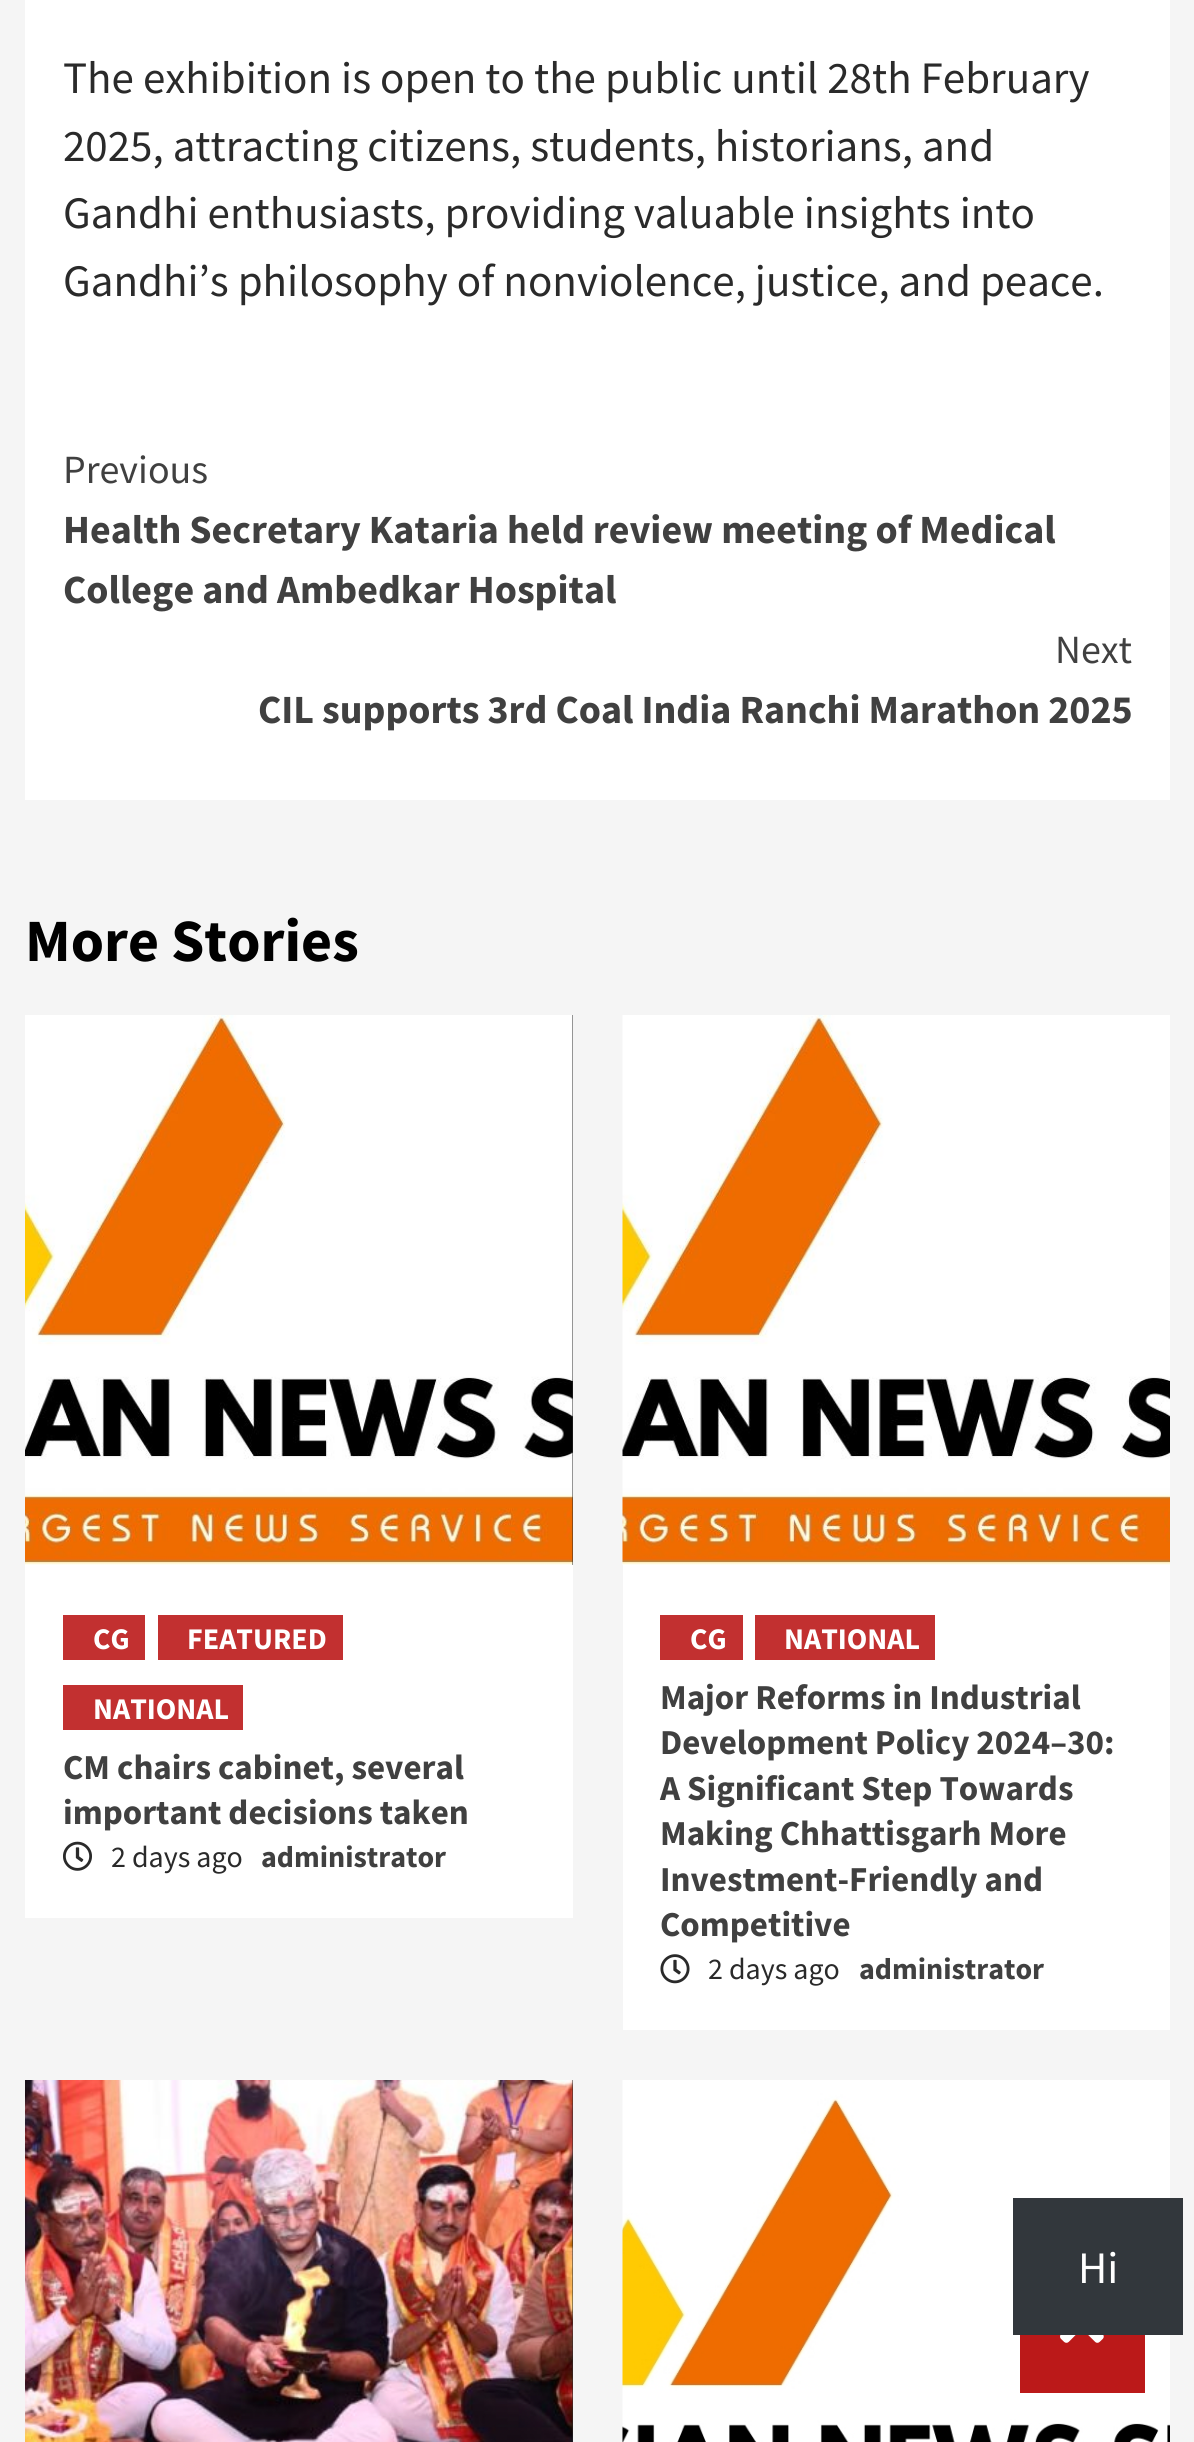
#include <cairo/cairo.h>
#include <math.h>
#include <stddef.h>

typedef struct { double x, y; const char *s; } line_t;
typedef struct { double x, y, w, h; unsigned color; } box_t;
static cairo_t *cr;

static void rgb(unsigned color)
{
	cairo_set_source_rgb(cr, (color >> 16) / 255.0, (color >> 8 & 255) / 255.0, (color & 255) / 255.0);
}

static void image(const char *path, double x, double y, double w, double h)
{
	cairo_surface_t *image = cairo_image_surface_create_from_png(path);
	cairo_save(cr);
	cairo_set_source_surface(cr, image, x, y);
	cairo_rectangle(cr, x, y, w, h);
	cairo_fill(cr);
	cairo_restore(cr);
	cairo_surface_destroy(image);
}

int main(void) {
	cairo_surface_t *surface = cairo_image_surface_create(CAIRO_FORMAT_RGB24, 1194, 2442);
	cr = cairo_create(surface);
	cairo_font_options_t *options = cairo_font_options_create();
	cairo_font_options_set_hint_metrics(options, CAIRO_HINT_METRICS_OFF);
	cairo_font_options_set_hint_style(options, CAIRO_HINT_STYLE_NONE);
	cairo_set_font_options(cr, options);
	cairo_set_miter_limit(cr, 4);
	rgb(0xf5f5f5);
	cairo_paint(cr);
	{
		static const box_t items[] = {
			{25, 0, 1145, 800, 0xffffff},
			{25, 1565, 548, 353, 0xffffff},
			{572, 1015, 1, 550, 0x2a2a2a},
		};
		for (size_t i = 0; i < sizeof items / sizeof *items; i++) {
			rgb(items[i].color);
			cairo_rectangle(cr, items[i].x, items[i].y, items[i].w, items[i].h);
			cairo_fill(cr);
		}
	}
	image("img/1.png", 25, 1015, 548, 550);
	{
		static const box_t items[] = {
			{63, 1615, 82, 45, 0xc23030},
			{158, 1615, 185, 45, 0xc23030},
			{63, 1685, 180, 45, 0xc23030},
		};
		for (size_t i = 0; i < sizeof items / sizeof *items; i++) {
			rgb(items[i].color);
			cairo_rectangle(cr, items[i].x, items[i].y, items[i].w, items[i].h);
			cairo_fill(cr);
		}
	}
	image("img/2.png", 63, 1841, 29, 30);
	rgb(0xffffff);
	cairo_rectangle(cr, 623, 1565, 547, 465);
	cairo_fill(cr);
	image("img/3.png", 622, 1015, 548, 550);
	rgb(0xc23030);
	cairo_rectangle(cr, 660, 1615, 83, 45);
	cairo_fill(cr);
	cairo_rectangle(cr, 755, 1615, 180, 45);
	cairo_fill(cr);
	image("img/4.png", 660, 1954, 30, 30);
	rgb(0x2a2a2a);
	cairo_rectangle(cr, 572, 2080, 1, 362);
	cairo_fill(cr);
	image("img/5.png", 25, 2080, 548, 362);
	image("img/6.png", 622, 2080, 548, 362);
	rgb(0x32373c);
	cairo_rectangle(cr, 1013, 2198, 170, 137);
	cairo_fill(cr);
	rgb(0xbb1919);
	cairo_rectangle(cr, 1020, 2335, 125, 58);
	cairo_fill(cr);
	image("img/7.png", 1060, 2335, 44, 8);
	cairo_select_font_face(cr, "Source Sans Pro", CAIRO_FONT_SLANT_NORMAL, CAIRO_FONT_WEIGHT_NORMAL);
	cairo_set_font_size(cr, 45);
	rgb(0x2a2a2a);
	{
		static const line_t items[] = {
			{63, 93, "The exhibition is open to the public until 28th February"},
			{63, 161, "2025, attracting citizens, students, historians, and"},
			{63, 228, "Gandhi enthusiasts, providing valuable insights into"},
			{63, 296, "Gandhi’s philosophy of nonviolence, justice, and peace."},
		};
		for (size_t i = 0; i < sizeof items / sizeof *items; i++) {
			cairo_move_to(cr, items[i].x, items[i].y);
			cairo_show_text(cr, items[i].s);
		}
	}
	cairo_set_font_size(cr, 40);
	rgb(0x404040);
	cairo_move_to(cr, 63, 483);
	cairo_show_text(cr, "Previous");
	cairo_select_font_face(cr, "Source Sans Pro", CAIRO_FONT_SLANT_NORMAL, CAIRO_FONT_WEIGHT_BOLD);
	cairo_move_to(cr, 63, 543);
	cairo_show_text(cr, "Health Secretary Kataria held review meeting of Medical");
	cairo_move_to(cr, 63, 603);
	cairo_show_text(cr, "College and Ambedkar Hospital");
	cairo_select_font_face(cr, "Source Sans Pro", CAIRO_FONT_SLANT_NORMAL, CAIRO_FONT_WEIGHT_NORMAL);
	cairo_move_to(cr, 1055, 663);
	cairo_show_text(cr, "Next");
	cairo_select_font_face(cr, "Source Sans Pro", CAIRO_FONT_SLANT_NORMAL, CAIRO_FONT_WEIGHT_BOLD);
	cairo_move_to(cr, 258, 723);
	cairo_show_text(cr, "CIL supports 3rd Coal India Ranchi Marathon 2025");
	cairo_set_font_size(cr, 60);
	rgb(0x000000);
	cairo_move_to(cr, 25, 961);
	cairo_show_text(cr, "More Stories");
	cairo_set_font_size(cr, 30);
	rgb(0xffffff);
	{
		static const line_t items[] = {
			{93, 1649, "CG"},
			{187, 1649, "FEATURED"},
			{93, 1719, "NATIONAL"},
		};
		for (size_t i = 0; i < sizeof items / sizeof *items; i++) {
			cairo_move_to(cr, items[i].x, items[i].y);
			cairo_show_text(cr, items[i].s);
		}
	}
	cairo_set_font_size(cr, 35);
	rgb(0x404040);
	cairo_move_to(cr, 63, 1779);
	cairo_show_text(cr, "CM chairs cabinet, several");
	cairo_move_to(cr, 63, 1824);
	cairo_show_text(cr, "important decisions taken");
	cairo_select_font_face(cr, "Source Sans Pro", CAIRO_FONT_SLANT_NORMAL, CAIRO_FONT_WEIGHT_NORMAL);
	cairo_set_font_size(cr, 30);
	rgb(0x2a2a2a);
	cairo_move_to(cr, 111, 1867);
	cairo_show_text(cr, "2 days ago");
	cairo_select_font_face(cr, "Source Sans Pro", CAIRO_FONT_SLANT_NORMAL, CAIRO_FONT_WEIGHT_BOLD);
	rgb(0x404040);
	cairo_move_to(cr, 261, 1867);
	cairo_show_text(cr, "administrator");
	rgb(0xffffff);
	cairo_move_to(cr, 690, 1649);
	cairo_show_text(cr, "CG");
	cairo_move_to(cr, 784, 1649);
	cairo_show_text(cr, "NATIONAL");
	cairo_set_font_size(cr, 35);
	rgb(0x404040);
	{
		static const line_t items[] = {
			{660, 1709, "Major Reforms in Industrial"},
			{660, 1754, "Development Policy 2024–30:"},
			{660, 1800, "A Significant Step Towards"},
			{660, 1845, "Making Chhattisgarh More"},
			{660, 1891, "Investment-Friendly and"},
			{660, 1936, "Competitive"},
		};
		for (size_t i = 0; i < sizeof items / sizeof *items; i++) {
			cairo_move_to(cr, items[i].x, items[i].y);
			cairo_show_text(cr, items[i].s);
		}
	}
	cairo_select_font_face(cr, "Source Sans Pro", CAIRO_FONT_SLANT_NORMAL, CAIRO_FONT_WEIGHT_NORMAL);
	cairo_set_font_size(cr, 30);
	rgb(0x2a2a2a);
	cairo_move_to(cr, 708, 1979);
	cairo_show_text(cr, "2 days ago");
	cairo_select_font_face(cr, "Source Sans Pro", CAIRO_FONT_SLANT_NORMAL, CAIRO_FONT_WEIGHT_BOLD);
	rgb(0x404040);
	cairo_move_to(cr, 859, 1979);
	cairo_show_text(cr, "administrator");
	cairo_select_font_face(cr, "Source Sans Pro", CAIRO_FONT_SLANT_NORMAL, CAIRO_FONT_WEIGHT_NORMAL);
	cairo_set_font_size(cr, 45);
	rgb(0xffffff);
	cairo_move_to(cr, 1078, 2283);
	cairo_show_text(cr, "Hi");
	cairo_surface_write_to_png(surface, "page.png");
	cairo_font_options_destroy(options);
	cairo_destroy(cr);
	cairo_surface_destroy(surface);
	return 0;
}
